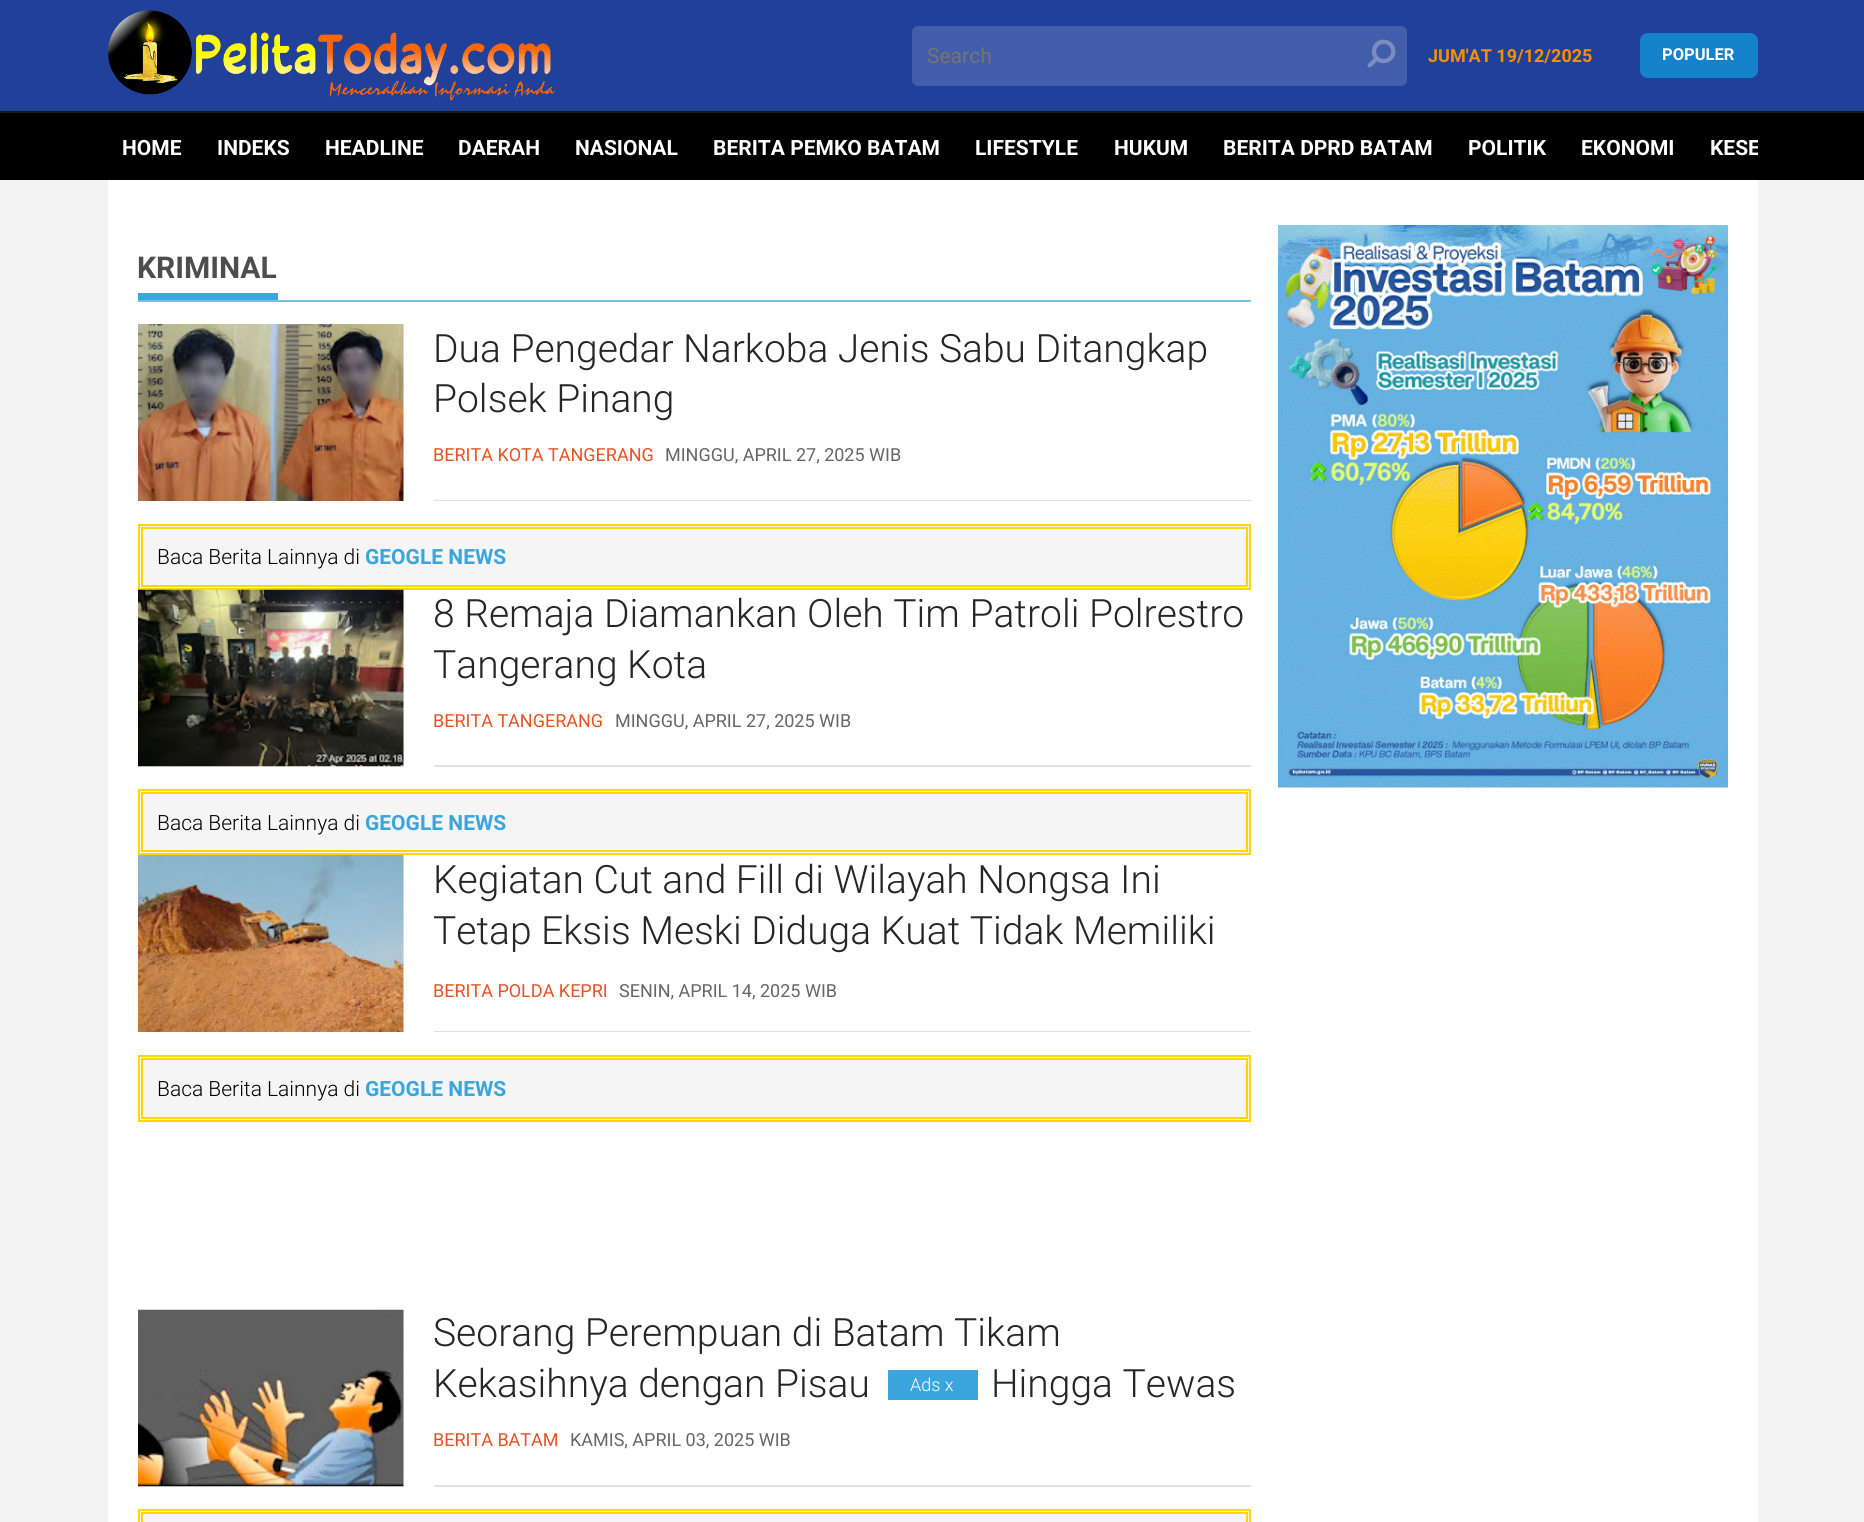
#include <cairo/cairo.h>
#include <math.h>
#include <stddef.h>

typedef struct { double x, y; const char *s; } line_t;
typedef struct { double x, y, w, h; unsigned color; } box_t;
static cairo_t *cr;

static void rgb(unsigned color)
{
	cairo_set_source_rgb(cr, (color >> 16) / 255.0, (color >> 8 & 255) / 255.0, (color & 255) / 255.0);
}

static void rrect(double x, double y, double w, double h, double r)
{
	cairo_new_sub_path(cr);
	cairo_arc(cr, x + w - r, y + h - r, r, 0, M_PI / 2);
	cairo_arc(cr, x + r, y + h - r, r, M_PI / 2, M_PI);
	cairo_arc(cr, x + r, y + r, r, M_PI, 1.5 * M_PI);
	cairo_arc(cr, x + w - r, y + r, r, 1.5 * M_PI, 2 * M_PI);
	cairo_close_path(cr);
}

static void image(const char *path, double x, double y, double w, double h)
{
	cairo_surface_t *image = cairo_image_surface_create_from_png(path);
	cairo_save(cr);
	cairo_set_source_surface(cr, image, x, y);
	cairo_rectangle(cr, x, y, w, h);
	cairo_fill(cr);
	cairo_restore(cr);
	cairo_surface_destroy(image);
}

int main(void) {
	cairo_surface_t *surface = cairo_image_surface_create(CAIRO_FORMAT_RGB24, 1864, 1522);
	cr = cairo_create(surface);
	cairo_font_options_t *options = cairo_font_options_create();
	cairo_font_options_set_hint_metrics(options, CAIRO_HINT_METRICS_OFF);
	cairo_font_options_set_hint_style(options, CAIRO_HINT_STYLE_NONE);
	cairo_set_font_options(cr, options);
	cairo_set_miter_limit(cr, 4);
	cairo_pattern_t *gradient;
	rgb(0xf3f3f3);
	cairo_paint(cr);
	rgb(0x21409a);
	cairo_rectangle(cr, 0, 0, 1864, 111);
	cairo_fill(cr);
	image("img/1.png", 108, 10, 447, 91);
	rgb(0x425da9);
	rrect(912, 26, 495, 60, 6);
	cairo_fill(cr);
	image("img/2.png", 1367, 39, 29, 29);
	rgb(0x1583cc);
	rrect(1640, 33, 118, 45, 8);
	cairo_fill(cr);
	{
		static const box_t items[] = {
			{0, 113, 1864, 67, 0x000000},
			{0, 111, 1864, 2, 0x1a1a1a},
			{108, 180, 1650, 1342, 0xffffff},
			{138, 300, 1113, 2, 0x77c0e7},
			{138, 293, 140, 7, 0x3ca5dd},
		};
		for (size_t i = 0; i < sizeof items / sizeof *items; i++) {
			rgb(items[i].color);
			cairo_rectangle(cr, items[i].x, items[i].y, items[i].w, items[i].h);
			cairo_fill(cr);
		}
	}
	gradient = cairo_pattern_create_linear(899, 783, 226, 219);
	cairo_pattern_add_color_stop_rgba(gradient, 0, 0.914, 0.914, 0.914, 1);
	cairo_pattern_add_color_stop_rgba(gradient, 0.5, 1, 1, 1, 1);
	cairo_pattern_add_color_stop_rgba(gradient, 1, 0.914, 0.914, 0.914, 1);
	cairo_set_source(cr, gradient);
	cairo_pattern_destroy(gradient);
	cairo_rectangle(cr, 403, 324, 1, 177);
	cairo_fill(cr);
	image("img/3.png", 138, 324, 266, 177);
	rgb(0xe3e2e3);
	cairo_rectangle(cr, 434, 500, 817, 1);
	cairo_fill(cr);
	rgb(0xf5f5f5);
	cairo_rectangle(cr, 139, 525, 1111, 64);
	cairo_fill_preserve(cr);
	rgb(0xffd700);
	cairo_stroke(cr);
	cairo_rectangle(cr, 142, 528, 1105, 58);
	cairo_stroke(cr);
	gradient = cairo_pattern_create_linear(899, 1049, 226, 484);
	cairo_pattern_add_color_stop_rgba(gradient, 0, 0.914, 0.914, 0.914, 1);
	cairo_pattern_add_color_stop_rgba(gradient, 0.5, 1, 1, 1, 1);
	cairo_pattern_add_color_stop_rgba(gradient, 1, 0.914, 0.914, 0.914, 1);
	cairo_set_source(cr, gradient);
	cairo_pattern_destroy(gradient);
	cairo_rectangle(cr, 138, 590, 266, 177);
	cairo_fill(cr);
	image("img/4.png", 138, 589, 266, 178);
	rgb(0xe3e2e3);
	cairo_rectangle(cr, 434, 765, 817, 2);
	cairo_fill(cr);
	rgb(0xf5f5f5);
	cairo_rectangle(cr, 139, 790, 1111, 64);
	cairo_fill_preserve(cr);
	rgb(0xffd700);
	cairo_stroke(cr);
	cairo_rectangle(cr, 142, 793, 1105, 58);
	cairo_stroke(cr);
	gradient = cairo_pattern_create_linear(899, 1314, 226, 750);
	cairo_pattern_add_color_stop_rgba(gradient, 0, 0.914, 0.914, 0.914, 1);
	cairo_pattern_add_color_stop_rgba(gradient, 0.5, 1, 1, 1, 1);
	cairo_pattern_add_color_stop_rgba(gradient, 1, 0.914, 0.914, 0.914, 1);
	cairo_set_source(cr, gradient);
	cairo_pattern_destroy(gradient);
	cairo_rectangle(cr, 403, 855, 1, 177);
	cairo_fill(cr);
	image("img/5.png", 138, 855, 266, 177);
	rgb(0xe3e2e3);
	cairo_rectangle(cr, 434, 1031, 817, 1);
	cairo_fill(cr);
	rgb(0xf5f5f5);
	cairo_rectangle(cr, 139, 1056, 1111, 65);
	cairo_fill_preserve(cr);
	rgb(0xffd700);
	cairo_stroke(cr);
	cairo_rectangle(cr, 142, 1059, 1105, 59);
	cairo_stroke(cr);
	gradient = cairo_pattern_create_linear(899, 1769, 226, 1204);
	cairo_pattern_add_color_stop_rgba(gradient, 0, 0.914, 0.914, 0.914, 1);
	cairo_pattern_add_color_stop_rgba(gradient, 0.5, 1, 1, 1, 1);
	cairo_pattern_add_color_stop_rgba(gradient, 1, 0.914, 0.914, 0.914, 1);
	cairo_set_source(cr, gradient);
	cairo_pattern_destroy(gradient);
	cairo_rectangle(cr, 138, 1310, 266, 177);
	cairo_fill(cr);
	image("img/6.png", 138, 1309, 266, 178);
	rgb(0xe3e2e3);
	cairo_rectangle(cr, 434, 1485, 817, 2);
	cairo_fill(cr);
	rgb(0xf5f5f5);
	cairo_rectangle(cr, 139, 1510, 1111, 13);
	cairo_fill_preserve(cr);
	rgb(0xffd700);
	cairo_stroke(cr);
	cairo_rectangle(cr, 142, 1513, 1105, 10);
	cairo_stroke(cr);
	image("img/7.png", 1278, 225, 450, 563);
	rgb(0x3ca5dd);
	cairo_rectangle(cr, 888, 1370, 90, 30);
	cairo_fill(cr);
	cairo_select_font_face(cr, "Roboto", CAIRO_FONT_SLANT_NORMAL, CAIRO_FONT_WEIGHT_NORMAL);
	cairo_set_font_size(cr, 21);
	rgb(0x757575);
	cairo_move_to(cr, 927, 63);
	cairo_show_text(cr, "Search");
	cairo_select_font_face(cr, "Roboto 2", CAIRO_FONT_SLANT_NORMAL, CAIRO_FONT_WEIGHT_BOLD);
	cairo_set_font_size(cr, 18);
	rgb(0xf48f01);
	cairo_move_to(cr, 1428, 62);
	cairo_show_text(cr, "JUM'AT 19/12/2025");
	cairo_set_font_size(cr, 16.5);
	rgb(0xffffff);
	cairo_move_to(cr, 1662, 60);
	cairo_show_text(cr, "POPULER");
	cairo_select_font_face(cr, "Roboto", CAIRO_FONT_SLANT_NORMAL, CAIRO_FONT_WEIGHT_BOLD);
	cairo_set_font_size(cr, 21);
	{
		static const line_t items[] = {
			{122, 155, "HOME"},
			{217, 155, "INDEKS"},
			{325, 155, "HEADLINE"},
			{458, 155, "DAERAH"},
			{575, 155, "NASIONAL"},
			{713, 155, "BERITA PEMKO BATAM"},
			{975, 155, "LIFESTYLE"},
			{1114, 155, "HUKUM"},
			{1223, 155, "BERITA DPRD BATAM"},
			{1468, 155, "POLITIK"},
			{1581, 155, "EKONOMI"},
		};
		for (size_t i = 0; i < sizeof items / sizeof *items; i++) {
			cairo_move_to(cr, items[i].x, items[i].y);
			cairo_show_text(cr, items[i].s);
		}
	}
	cairo_save(cr);
	cairo_rectangle(cr, 108, 113, 1650, 67);
	cairo_clip(cr);
	cairo_move_to(cr, 1710, 155);
	cairo_show_text(cr, "KESE");
	cairo_restore(cr);
	cairo_set_font_size(cr, 30);
	rgb(0x4d4d4d);
	cairo_move_to(cr, 137, 278);
	cairo_show_text(cr, "KRIMINAL");
	cairo_select_font_face(cr, "Roboto Light", CAIRO_FONT_SLANT_NORMAL, CAIRO_FONT_WEIGHT_NORMAL);
	cairo_set_font_size(cr, 39);
	rgb(0x262626);
	cairo_move_to(cr, 433, 362);
	cairo_show_text(cr, "Dua Pengedar Narkoba Jenis Sabu Ditangkap");
	cairo_move_to(cr, 433, 412);
	cairo_show_text(cr, "Polsek Pinang");
	cairo_select_font_face(cr, "Roboto", CAIRO_FONT_SLANT_NORMAL, CAIRO_FONT_WEIGHT_NORMAL);
	cairo_set_font_size(cr, 18);
	rgb(0xe55225);
	cairo_move_to(cr, 433, 461);
	cairo_show_text(cr, "BERITA KOTA TANGERANG");
	rgb(0x666666);
	cairo_move_to(cr, 665, 461);
	cairo_show_text(cr, "MINGGU, APRIL 27, 2025 WIB");
	cairo_select_font_face(cr, "Roboto Light", CAIRO_FONT_SLANT_NORMAL, CAIRO_FONT_WEIGHT_NORMAL);
	cairo_set_font_size(cr, 21);
	rgb(0x000000);
	cairo_move_to(cr, 157, 564);
	cairo_show_text(cr, "Baca Berita Lainnya di");
	cairo_select_font_face(cr, "Roboto 2", CAIRO_FONT_SLANT_NORMAL, CAIRO_FONT_WEIGHT_BOLD);
	rgb(0x3ca5dd);
	cairo_move_to(cr, 365, 564);
	cairo_show_text(cr, "GEOGLE NEWS");
	cairo_select_font_face(cr, "Roboto Light", CAIRO_FONT_SLANT_NORMAL, CAIRO_FONT_WEIGHT_NORMAL);
	cairo_set_font_size(cr, 39);
	rgb(0x262626);
	cairo_move_to(cr, 433, 627);
	cairo_show_text(cr, "8 Remaja Diamankan Oleh Tim Patroli Polrestro");
	cairo_save(cr);
	cairo_rectangle(cr, 434, 590, 817, 102);
	cairo_clip(cr);
	cairo_move_to(cr, 433, 678);
	cairo_show_text(cr, "Tangerang Kota");
	cairo_restore(cr);
	cairo_select_font_face(cr, "Roboto", CAIRO_FONT_SLANT_NORMAL, CAIRO_FONT_WEIGHT_NORMAL);
	cairo_set_font_size(cr, 18);
	rgb(0xe55225);
	cairo_move_to(cr, 433, 727);
	cairo_show_text(cr, "BERITA TANGERANG");
	rgb(0x666666);
	cairo_move_to(cr, 615, 727);
	cairo_show_text(cr, "MINGGU, APRIL 27, 2025 WIB");
	cairo_select_font_face(cr, "Roboto Light", CAIRO_FONT_SLANT_NORMAL, CAIRO_FONT_WEIGHT_NORMAL);
	cairo_set_font_size(cr, 21);
	rgb(0x000000);
	cairo_move_to(cr, 157, 830);
	cairo_show_text(cr, "Baca Berita Lainnya di");
	cairo_select_font_face(cr, "Roboto 2", CAIRO_FONT_SLANT_NORMAL, CAIRO_FONT_WEIGHT_BOLD);
	rgb(0x3ca5dd);
	cairo_move_to(cr, 365, 830);
	cairo_show_text(cr, "GEOGLE NEWS");
	cairo_select_font_face(cr, "Roboto Light", CAIRO_FONT_SLANT_NORMAL, CAIRO_FONT_WEIGHT_NORMAL);
	cairo_set_font_size(cr, 39);
	rgb(0x262626);
	cairo_move_to(cr, 433, 893);
	cairo_show_text(cr, "Kegiatan Cut and Fill di Wilayah Nongsa Ini");
	cairo_save(cr);
	cairo_rectangle(cr, 434, 855, 817, 105);
	cairo_clip(cr);
	cairo_move_to(cr, 433, 944);
	cairo_show_text(cr, "Tetap Eksis Meski Diduga Kuat Tidak Memiliki");
	cairo_restore(cr);
	cairo_select_font_face(cr, "Roboto", CAIRO_FONT_SLANT_NORMAL, CAIRO_FONT_WEIGHT_NORMAL);
	cairo_set_font_size(cr, 18);
	rgb(0xe55225);
	cairo_move_to(cr, 433, 997);
	cairo_show_text(cr, "BERITA POLDA KEPRI");
	rgb(0x666666);
	cairo_move_to(cr, 619, 997);
	cairo_show_text(cr, "SENIN, APRIL 14, 2025 WIB");
	cairo_select_font_face(cr, "Roboto Light", CAIRO_FONT_SLANT_NORMAL, CAIRO_FONT_WEIGHT_NORMAL);
	cairo_set_font_size(cr, 21);
	rgb(0x000000);
	cairo_move_to(cr, 157, 1096);
	cairo_show_text(cr, "Baca Berita Lainnya di");
	cairo_select_font_face(cr, "Roboto 2", CAIRO_FONT_SLANT_NORMAL, CAIRO_FONT_WEIGHT_BOLD);
	rgb(0x3ca5dd);
	cairo_move_to(cr, 365, 1096);
	cairo_show_text(cr, "GEOGLE NEWS");
	cairo_select_font_face(cr, "Roboto Light", CAIRO_FONT_SLANT_NORMAL, CAIRO_FONT_WEIGHT_NORMAL);
	cairo_set_font_size(cr, 39);
	rgb(0x262626);
	{
		static const line_t items[] = {
			{433, 1346, "Seorang Perempuan di Batam Tikam"},
			{433, 1397, "Kekasihnya dengan Pisau"},
			{991, 1397, "Hingga Tewas"},
		};
		for (size_t i = 0; i < sizeof items / sizeof *items; i++) {
			cairo_move_to(cr, items[i].x, items[i].y);
			cairo_show_text(cr, items[i].s);
		}
	}
	cairo_select_font_face(cr, "Roboto", CAIRO_FONT_SLANT_NORMAL, CAIRO_FONT_WEIGHT_NORMAL);
	cairo_set_font_size(cr, 18);
	rgb(0xe55225);
	cairo_move_to(cr, 433, 1446);
	cairo_show_text(cr, "BERITA BATAM");
	rgb(0x666666);
	cairo_move_to(cr, 570, 1446);
	cairo_show_text(cr, "KAMIS, APRIL 03, 2025 WIB");
	cairo_select_font_face(cr, "Roboto Light", CAIRO_FONT_SLANT_NORMAL, CAIRO_FONT_WEIGHT_NORMAL);
	rgb(0xffffff);
	cairo_move_to(cr, 910, 1391);
	cairo_show_text(cr, "Ads x");
	cairo_surface_write_to_png(surface, "page.png");
	cairo_font_options_destroy(options);
	cairo_destroy(cr);
	cairo_surface_destroy(surface);
	return 0;
}
